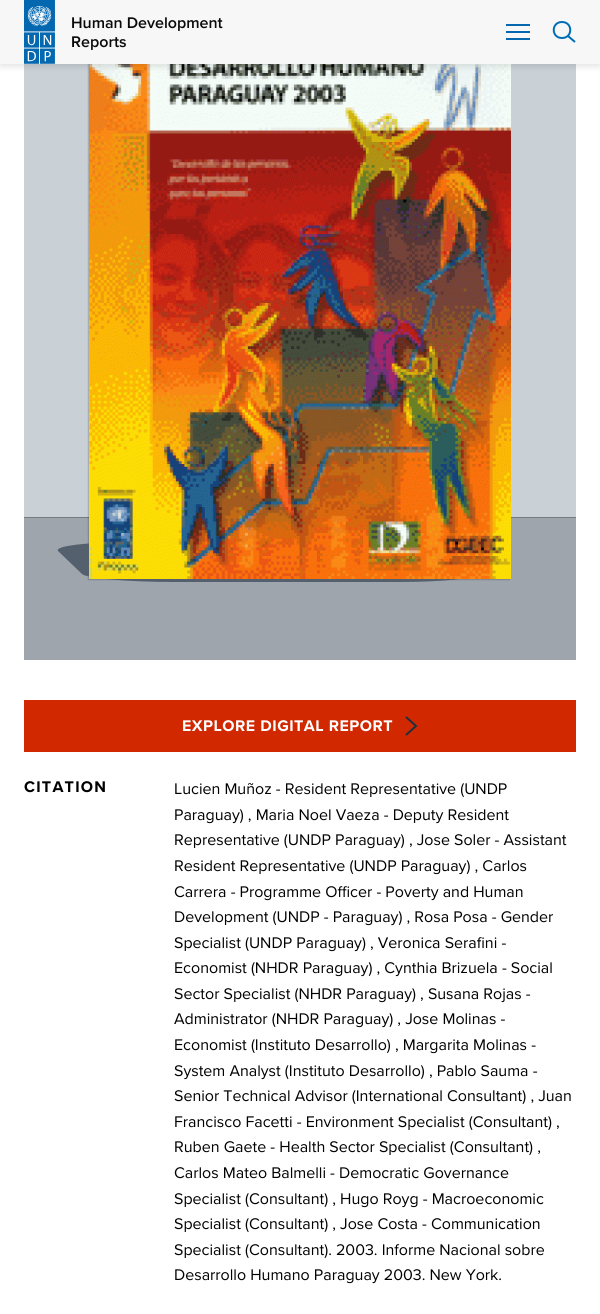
#include <cairo/cairo.h>
#include <math.h>
#include <stddef.h>

typedef struct { double x, y; const char *s; } line_t;
typedef struct { double x, y, w, h; unsigned color; } box_t;
static cairo_t *cr;

static void rgb(unsigned color)
{
	cairo_set_source_rgb(cr, (color >> 16) / 255.0, (color >> 8 & 255) / 255.0, (color & 255) / 255.0);
}

static void tracked(double x, double y, const char *s, double letter, double word)
{
	cairo_move_to(cr, x, y);
	while (*s) {
		char ch[5] = {0};
		int n = 0;
		do ch[n++] = *s++; while ((*s & 0xC0) == 0x80);
		cairo_show_text(cr, ch);
		cairo_rel_move_to(cr, letter + word * (*ch == ' '), 0);
	}
}

static void rrect(double x, double y, double w, double h, double r)
{
	cairo_new_sub_path(cr);
	cairo_arc(cr, x + w - r, y + h - r, r, 0, M_PI / 2);
	cairo_arc(cr, x + r, y + h - r, r, M_PI / 2, M_PI);
	cairo_arc(cr, x + r, y + r, r, M_PI, 1.5 * M_PI);
	cairo_arc(cr, x + w - r, y + r, r, 1.5 * M_PI, 2 * M_PI);
	cairo_close_path(cr);
}

static void soft_shadow(double x, double y, double w, double h, double r, double blur, double alpha)
{
	cairo_push_group_with_content(cr, CAIRO_CONTENT_ALPHA);
	cairo_set_operator(cr, CAIRO_OPERATOR_SOURCE);
	for (int i = 15; i >= -15 && fmin(w, h) + blur * i / 3 > 0; i -= 2) {
		double e = blur * i / 6;
		cairo_set_source_rgba(cr, 0, 0, 0, alpha * erfc((i - 1) / 8.5) / 2);
		rrect(x - e, y - e, w + 2 * e, h + 2 * e, fmax(0, fmin(r + e + blur * .6, fmin(w, h) / 2 + e)));
		cairo_fill(cr);
	}
	cairo_pattern_t *soft = cairo_pop_group(cr);
	cairo_mask(cr, soft);
	cairo_pattern_destroy(soft);
}

static void image(const char *path, double x, double y, double w, double h)
{
	cairo_surface_t *image = cairo_image_surface_create_from_png(path);
	cairo_save(cr);
	cairo_set_source_surface(cr, image, x, y);
	cairo_rectangle(cr, x, y, w, h);
	cairo_fill(cr);
	cairo_restore(cr);
	cairo_surface_destroy(image);
}

int main(void) {
	cairo_surface_t *surface = cairo_image_surface_create(CAIRO_FORMAT_RGB24, 600, 1314);
	cr = cairo_create(surface);
	cairo_font_options_t *options = cairo_font_options_create();
	cairo_font_options_set_hint_metrics(options, CAIRO_HINT_METRICS_OFF);
	cairo_font_options_set_hint_style(options, CAIRO_HINT_STYLE_NONE);
	cairo_set_font_options(cr, options);
	cairo_set_miter_limit(cr, 4);
	rgb(0xffffff);
	cairo_paint(cr);
	{
		static const box_t items[] = {
			{24, 64, 552, 453, 0xc9d0d6},
			{24, 518, 552, 142, 0x9ea5ad},
			{24, 517, 552, 1, 0x757a7e},
		};
		for (size_t i = 0; i < sizeof items / sizeof *items; i++) {
			rgb(items[i].color);
			cairo_rectangle(cr, items[i].x, items[i].y, items[i].w, items[i].h);
			cairo_fill(cr);
		}
	}
	rgb(0x000000);
	soft_shadow(88, 5, 422, 575, 0, 0.5, 0.2);
	rgb(0x55606e);
	cairo_new_path(cr);
	cairo_move_to(cr, 132, 542);
	cairo_line_to(cr, 360, 542);
	cairo_curve_to(cr, 405, 542, 446, 546, 450, 551);
	cairo_line_to(cr, 474, 574);
	cairo_curve_to(cr, 478, 578, 445, 582, 400, 582);
	cairo_line_to(cr, 172, 582);
	cairo_curve_to(cr, 127, 582, 86, 578, 82, 574);
	cairo_line_to(cr, 58, 551);
	cairo_curve_to(cr, 54, 546, 87, 542, 132, 542);
	cairo_close_path(cr);
	cairo_fill(cr);
	image("img/2.png", 89, 64, 422, 515);
	rgb(0x000000);
	soft_shadow(0, 3, 600, 64, 0, 3, 0.1);
	rgb(0xf7f7f7);
	cairo_rectangle(cr, 0, 0, 600, 64);
	cairo_fill(cr);
	image("img/1.png", 24, 0, 31, 64);
	{
		static const box_t items[] = {
			{506, 24, 24, 2, 0x0468b1},
			{506, 31, 24, 2, 0x0468b1},
			{506, 38, 24, 2, 0x0468b1},
		};
		for (size_t i = 0; i < sizeof items / sizeof *items; i++) {
			rgb(items[i].color);
			cairo_rectangle(cr, items[i].x, items[i].y, items[i].w, items[i].h);
			cairo_fill(cr);
		}
	}
	cairo_new_path(cr);
	cairo_move_to(cr, 562, 38);
	cairo_curve_to(cr, 573, 38, 573, 22, 562, 22);
	cairo_curve_to(cr, 551, 22, 551, 38, 562, 38);
	cairo_close_path(cr);
	cairo_move_to(cr, 575, 42);
	cairo_line_to(cr, 568, 36);
	rgb(0x006eb5);
	cairo_stroke(cr);
	rgb(0xd12800);
	cairo_rectangle(cr, 24, 700, 552, 52);
	cairo_fill(cr);
	cairo_new_path(cr);
	cairo_move_to(cr, 406, 717);
	cairo_line_to(cr, 416, 726);
	cairo_line_to(cr, 406, 735);
	rgb(0x232e3d);
	cairo_stroke(cr);
	cairo_select_font_face(cr, "Proxima Nova SemiBold", CAIRO_FONT_SLANT_NORMAL, CAIRO_FONT_WEIGHT_NORMAL);
	cairo_set_font_size(cr, 16);
	rgb(0x0a0a0a);
	cairo_move_to(cr, 71, 28);
	cairo_show_text(cr, "Human Development");
	cairo_move_to(cr, 71, 47);
	cairo_show_text(cr, "Reports");
	cairo_select_font_face(cr, "Proxima Nova", CAIRO_FONT_SLANT_NORMAL, CAIRO_FONT_WEIGHT_BOLD);
	rgb(0xffffff);
	tracked(182, 731, "EXPLORE DIGITAL REPORT", 0.5, 0);
	rgb(0x000000);
	tracked(24, 792, "CITATION", 1.25, 0);
	cairo_select_font_face(cr, "Proxima Nova", CAIRO_FONT_SLANT_NORMAL, CAIRO_FONT_WEIGHT_NORMAL);
	{
		static const line_t items[] = {
			{174, 794, "Lucien Muñoz - Resident Representative (UNDP"},
			{174, 820, "Paraguay) , Maria Noel Vaeza - Deputy Resident"},
			{174, 845, "Representative (UNDP Paraguay) , Jose Soler - Assistant"},
			{174, 871, "Resident Representative (UNDP Paraguay) , Carlos"},
			{174, 897, "Carrera - Programme Officer - Poverty and Human"},
			{174, 922, "Development (UNDP - Paraguay) , Rosa Posa - Gender"},
			{174, 948, "Specialist (UNDP Paraguay) , Veronica Serafini -"},
			{174, 973, "Economist (NHDR Paraguay) , Cynthia Brizuela - Social"},
			{174, 999, "Sector Specialist (NHDR Paraguay) , Susana Rojas -"},
			{174, 1024, "Administrator (NHDR Paraguay) , Jose Molinas -"},
			{174, 1050, "Economist (Instituto Desarrollo) , Margarita Molinas -"},
			{174, 1076, "System Analyst (Instituto Desarrollo) , Pablo Sauma -"},
			{174, 1101, "Senior Technical Advisor (International Consultant) , Juan"},
			{174, 1127, "Francisco Facetti - Environment Specialist (Consultant) ,"},
			{174, 1152, "Ruben Gaete - Health Sector Specialist (Consultant) ,"},
			{174, 1178, "Carlos Mateo Balmelli - Democratic Governance"},
			{174, 1204, "Specialist (Consultant) , Hugo Royg - Macroeconomic"},
			{174, 1229, "Specialist (Consultant) , Jose Costa - Communication"},
			{174, 1255, "Specialist (Consultant). 2003. Informe Nacional sobre"},
			{174, 1280, "Desarrollo Humano Paraguay 2003. New York."},
		};
		for (size_t i = 0; i < sizeof items / sizeof *items; i++) {
			cairo_move_to(cr, items[i].x, items[i].y);
			cairo_show_text(cr, items[i].s);
		}
	}
	cairo_surface_write_to_png(surface, "page.png");
	cairo_font_options_destroy(options);
	cairo_destroy(cr);
	cairo_surface_destroy(surface);
	return 0;
}
